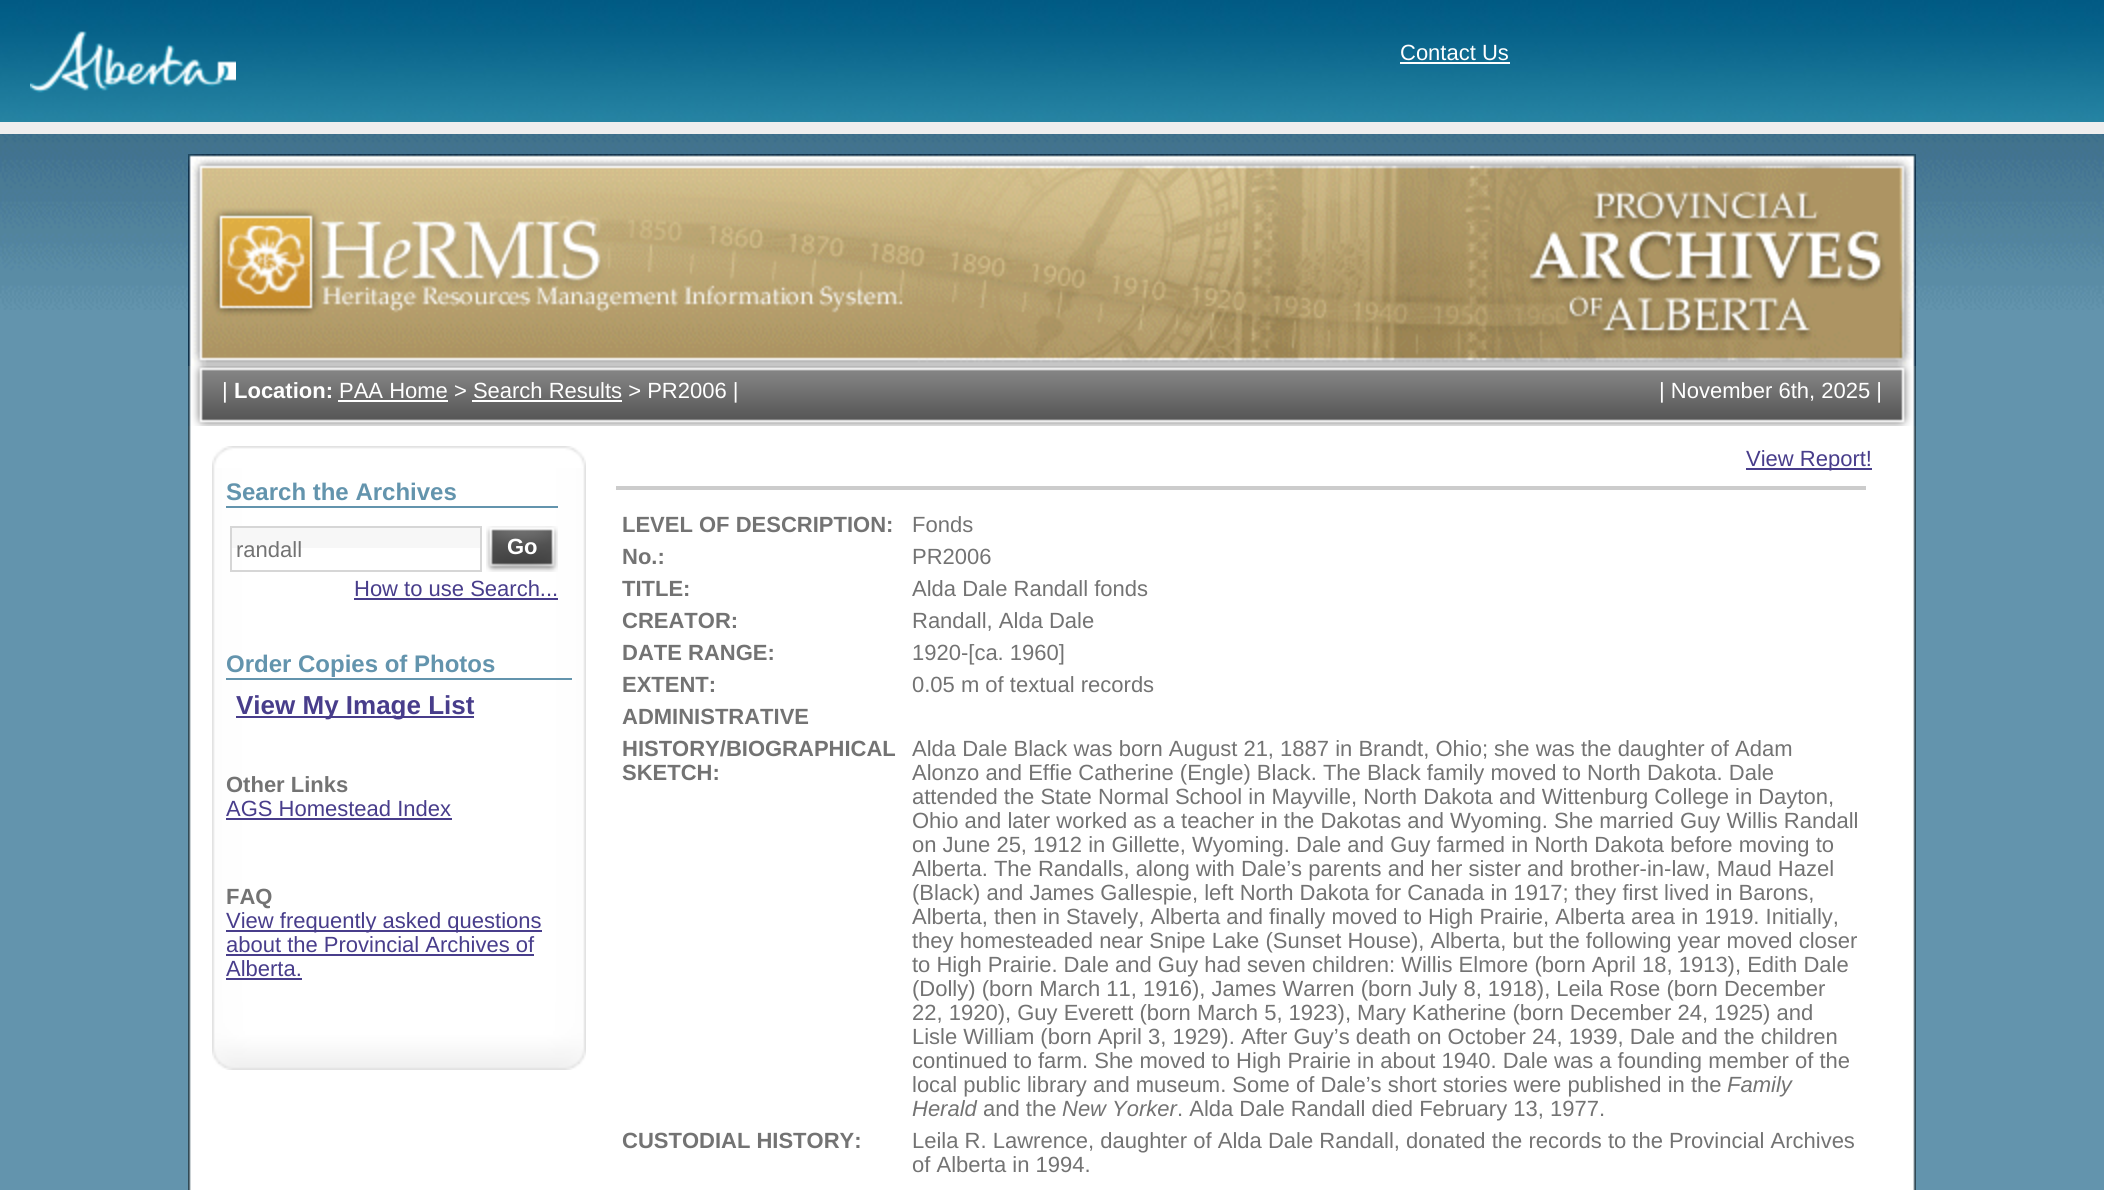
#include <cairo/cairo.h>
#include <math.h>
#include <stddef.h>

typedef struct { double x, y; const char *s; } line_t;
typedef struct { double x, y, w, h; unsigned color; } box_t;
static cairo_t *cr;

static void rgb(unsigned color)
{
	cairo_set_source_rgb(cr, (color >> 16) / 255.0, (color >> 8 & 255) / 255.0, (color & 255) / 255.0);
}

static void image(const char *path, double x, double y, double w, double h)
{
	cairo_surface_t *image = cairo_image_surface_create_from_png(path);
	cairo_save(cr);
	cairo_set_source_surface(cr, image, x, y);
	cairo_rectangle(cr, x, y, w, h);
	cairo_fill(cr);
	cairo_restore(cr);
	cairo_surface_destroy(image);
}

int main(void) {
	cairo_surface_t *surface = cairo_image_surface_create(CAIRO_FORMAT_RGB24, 2104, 1190);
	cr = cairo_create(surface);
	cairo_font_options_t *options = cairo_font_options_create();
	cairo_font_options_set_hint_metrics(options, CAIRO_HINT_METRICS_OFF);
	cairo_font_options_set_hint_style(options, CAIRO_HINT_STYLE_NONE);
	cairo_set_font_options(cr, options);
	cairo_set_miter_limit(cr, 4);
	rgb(0x6394ad);
	cairo_paint(cr);
	image("img/1.png", 0, 134, 2104, 176);
	image("img/2.png", 0, 0, 2104, 122);
	image("img/3.png", 30, 31, 206, 62);
	rgb(0xffffff);
	cairo_rectangle(cr, 1400, 62, 110, 2);
	cairo_fill(cr);
	rgb(0xeeeeee);
	cairo_rectangle(cr, 0, 122, 2104, 12);
	cairo_fill(cr);
	image("img/4.png", 188, 426, 1728, 764);
	image("img/5.png", 188, 154, 1728, 212);
	image("img/6.png", 188, 366, 1728, 60);
	rgb(0xffffff);
	cairo_rectangle(cr, 338, 400, 110, 2);
	cairo_fill(cr);
	cairo_rectangle(cr, 472, 400, 150, 2);
	cairo_fill(cr);
	image("img/7.png", 212, 446, 374, 22);
	image("img/8.png", 212, 468, 374, 534);
	rgb(0x6394ad);
	cairo_rectangle(cr, 226, 506, 332, 2);
	cairo_fill(cr);
	rgb(0xf7f7f7);
	cairo_rectangle(cr, 232, 528, 248, 20);
	cairo_fill(cr);
	cairo_rectangle(cr, 231, 527, 250, 44);
	rgb(0xd6d6d6);
	cairo_stroke(cr);
	image("img/9.png", 486, 526, 72, 46);
	{
		static const box_t items[] = {
			{354, 598, 204, 2, 0x483d8b},
			{226, 678, 346, 2, 0x6394ad},
			{236, 716, 238, 2, 0x483d8b},
			{226, 818, 226, 2, 0x483d8b},
			{226, 930, 316, 2, 0x483d8b},
			{226, 954, 308, 2, 0x483d8b},
			{226, 978, 76, 2, 0x483d8b},
		};
		for (size_t i = 0; i < sizeof items / sizeof *items; i++) {
			rgb(items[i].color);
			cairo_rectangle(cr, items[i].x, items[i].y, items[i].w, items[i].h);
			cairo_fill(cr);
		}
	}
	image("img/10.png", 212, 1002, 374, 68);
	cairo_rectangle(cr, 1746, 468, 126, 2);
	cairo_fill(cr);
	rgb(0xcccccc);
	cairo_rectangle(cr, 616, 486, 1250, 4);
	cairo_fill(cr);
	cairo_select_font_face(cr, "Liberation Sans", CAIRO_FONT_SLANT_NORMAL, CAIRO_FONT_WEIGHT_NORMAL);
	cairo_set_font_size(cr, 22);
	rgb(0xffffff);
	cairo_move_to(cr, 1400, 60);
	cairo_show_text(cr, "Contact Us");
	cairo_move_to(cr, 222, 398);
	cairo_show_text(cr, "|");
	cairo_select_font_face(cr, "Liberation Sans", CAIRO_FONT_SLANT_NORMAL, CAIRO_FONT_WEIGHT_BOLD);
	cairo_move_to(cr, 234, 398);
	cairo_show_text(cr, "Location:");
	cairo_select_font_face(cr, "Liberation Sans", CAIRO_FONT_SLANT_NORMAL, CAIRO_FONT_WEIGHT_NORMAL);
	cairo_move_to(cr, 339, 398);
	cairo_show_text(cr, "PAA Home > Search Results > PR2006 |");
	cairo_move_to(cr, 1659, 398);
	cairo_show_text(cr, "| November 6th, 2025 |");
	cairo_select_font_face(cr, "Liberation Sans", CAIRO_FONT_SLANT_NORMAL, CAIRO_FONT_WEIGHT_BOLD);
	cairo_set_font_size(cr, 24);
	rgb(0x6394ad);
	cairo_move_to(cr, 226, 500);
	cairo_show_text(cr, "Search the Archives");
	cairo_select_font_face(cr, "Liberation Sans", CAIRO_FONT_SLANT_NORMAL, CAIRO_FONT_WEIGHT_NORMAL);
	cairo_set_font_size(cr, 22);
	rgb(0x737373);
	cairo_move_to(cr, 236, 557);
	cairo_show_text(cr, "randall");
	cairo_select_font_face(cr, "Liberation Sans", CAIRO_FONT_SLANT_NORMAL, CAIRO_FONT_WEIGHT_BOLD);
	rgb(0xffffff);
	cairo_move_to(cr, 507, 554);
	cairo_show_text(cr, "Go");
	cairo_select_font_face(cr, "Liberation Sans", CAIRO_FONT_SLANT_NORMAL, CAIRO_FONT_WEIGHT_NORMAL);
	rgb(0x483d8b);
	cairo_move_to(cr, 354, 596);
	cairo_show_text(cr, "How to use Search...");
	cairo_select_font_face(cr, "Liberation Sans", CAIRO_FONT_SLANT_NORMAL, CAIRO_FONT_WEIGHT_BOLD);
	cairo_set_font_size(cr, 24);
	rgb(0x6394ad);
	cairo_move_to(cr, 226, 672);
	cairo_show_text(cr, "Order Copies of Photos");
	cairo_set_font_size(cr, 26);
	rgb(0x483d8b);
	cairo_move_to(cr, 236, 714);
	cairo_show_text(cr, "View My Image List");
	cairo_set_font_size(cr, 22);
	rgb(0x737373);
	cairo_move_to(cr, 226, 792);
	cairo_show_text(cr, "Other Links");
	cairo_select_font_face(cr, "Liberation Sans", CAIRO_FONT_SLANT_NORMAL, CAIRO_FONT_WEIGHT_NORMAL);
	rgb(0x483d8b);
	cairo_move_to(cr, 226, 816);
	cairo_show_text(cr, "AGS Homestead Index");
	cairo_select_font_face(cr, "Liberation Sans", CAIRO_FONT_SLANT_NORMAL, CAIRO_FONT_WEIGHT_BOLD);
	rgb(0x737373);
	cairo_move_to(cr, 226, 904);
	cairo_show_text(cr, "FAQ");
	cairo_select_font_face(cr, "Liberation Sans", CAIRO_FONT_SLANT_NORMAL, CAIRO_FONT_WEIGHT_NORMAL);
	rgb(0x483d8b);
	{
		static const line_t items[] = {
			{226, 928, "View frequently asked questions"},
			{226, 952, "about the Provincial Archives of"},
			{226, 976, "Alberta."},
			{1746, 466, "View Report!"},
		};
		for (size_t i = 0; i < sizeof items / sizeof *items; i++) {
			cairo_move_to(cr, items[i].x, items[i].y);
			cairo_show_text(cr, items[i].s);
		}
	}
	cairo_select_font_face(cr, "Liberation Sans", CAIRO_FONT_SLANT_NORMAL, CAIRO_FONT_WEIGHT_BOLD);
	rgb(0x737373);
	cairo_move_to(cr, 622, 532);
	cairo_show_text(cr, "LEVEL OF DESCRIPTION:");
	cairo_select_font_face(cr, "Liberation Sans", CAIRO_FONT_SLANT_NORMAL, CAIRO_FONT_WEIGHT_NORMAL);
	cairo_move_to(cr, 912, 532);
	cairo_show_text(cr, "Fonds");
	cairo_select_font_face(cr, "Liberation Sans", CAIRO_FONT_SLANT_NORMAL, CAIRO_FONT_WEIGHT_BOLD);
	cairo_move_to(cr, 622, 564);
	cairo_show_text(cr, "No.:");
	cairo_select_font_face(cr, "Liberation Sans", CAIRO_FONT_SLANT_NORMAL, CAIRO_FONT_WEIGHT_NORMAL);
	cairo_move_to(cr, 912, 564);
	cairo_show_text(cr, "PR2006");
	cairo_select_font_face(cr, "Liberation Sans", CAIRO_FONT_SLANT_NORMAL, CAIRO_FONT_WEIGHT_BOLD);
	cairo_move_to(cr, 622, 596);
	cairo_show_text(cr, "TITLE:");
	cairo_select_font_face(cr, "Liberation Sans", CAIRO_FONT_SLANT_NORMAL, CAIRO_FONT_WEIGHT_NORMAL);
	cairo_move_to(cr, 912, 596);
	cairo_show_text(cr, "Alda Dale Randall fonds");
	cairo_select_font_face(cr, "Liberation Sans", CAIRO_FONT_SLANT_NORMAL, CAIRO_FONT_WEIGHT_BOLD);
	cairo_move_to(cr, 622, 628);
	cairo_show_text(cr, "CREATOR:");
	cairo_select_font_face(cr, "Liberation Sans", CAIRO_FONT_SLANT_NORMAL, CAIRO_FONT_WEIGHT_NORMAL);
	cairo_move_to(cr, 912, 628);
	cairo_show_text(cr, "Randall, Alda Dale");
	cairo_select_font_face(cr, "Liberation Sans", CAIRO_FONT_SLANT_NORMAL, CAIRO_FONT_WEIGHT_BOLD);
	cairo_move_to(cr, 622, 660);
	cairo_show_text(cr, "DATE RANGE:");
	cairo_select_font_face(cr, "Liberation Sans", CAIRO_FONT_SLANT_NORMAL, CAIRO_FONT_WEIGHT_NORMAL);
	cairo_move_to(cr, 912, 660);
	cairo_show_text(cr, "1920-[ca. 1960]");
	cairo_select_font_face(cr, "Liberation Sans", CAIRO_FONT_SLANT_NORMAL, CAIRO_FONT_WEIGHT_BOLD);
	cairo_move_to(cr, 622, 692);
	cairo_show_text(cr, "EXTENT:");
	cairo_select_font_face(cr, "Liberation Sans", CAIRO_FONT_SLANT_NORMAL, CAIRO_FONT_WEIGHT_NORMAL);
	cairo_move_to(cr, 912, 692);
	cairo_show_text(cr, "0.05 m of textual records");
	cairo_select_font_face(cr, "Liberation Sans", CAIRO_FONT_SLANT_NORMAL, CAIRO_FONT_WEIGHT_BOLD);
	{
		static const line_t items[] = {
			{622, 724, "ADMINISTRATIVE"},
			{622, 756, "HISTORY/BIOGRAPHICAL"},
			{622, 780, "SKETCH:"},
		};
		for (size_t i = 0; i < sizeof items / sizeof *items; i++) {
			cairo_move_to(cr, items[i].x, items[i].y);
			cairo_show_text(cr, items[i].s);
		}
	}
	cairo_select_font_face(cr, "Liberation Sans", CAIRO_FONT_SLANT_NORMAL, CAIRO_FONT_WEIGHT_NORMAL);
	{
		static const line_t items[] = {
			{912, 756, "Alda Dale Black was born August 21, 1887 in Brandt, Ohio; she was the daughter of Adam"},
			{912, 780, "Alonzo and Effie Catherine (Engle) Black. The Black family moved to North Dakota. Dale"},
			{912, 804, "attended the State Normal School in Mayville, North Dakota and Wittenburg College in Dayton,"},
			{912, 828, "Ohio and later worked as a teacher in the Dakotas and Wyoming. She married Guy Willis Randall"},
			{912, 852, "on June 25, 1912 in Gillette, Wyoming. Dale and Guy farmed in North Dakota before moving to"},
			{912, 876, "Alberta. The Randalls, along with Dale’s parents and her sister and brother-in-law, Maud Hazel"},
			{912, 900, "(Black) and James Gallespie, left North Dakota for Canada in 1917; they first lived in Barons,"},
			{912, 924, "Alberta, then in Stavely, Alberta and finally moved to High Prairie, Alberta area in 1919. Initially,"},
			{912, 948, "they homesteaded near Snipe Lake (Sunset House), Alberta, but the following year moved closer"},
			{912, 972, "to High Prairie. Dale and Guy had seven children: Willis Elmore (born April 18, 1913), Edith Dale"},
			{912, 996, "(Dolly) (born March 11, 1916), James Warren (born July 8, 1918), Leila Rose (born December"},
			{912, 1020, "22, 1920), Guy Everett (born March 5, 1923), Mary Katherine (born December 24, 1925) and"},
			{912, 1044, "Lisle William (born April 3, 1929). After Guy’s death on October 24, 1939, Dale and the children"},
			{912, 1068, "continued to farm. She moved to High Prairie in about 1940. Dale was a founding member of the"},
			{912, 1092, "local public library and museum. Some of Dale’s short stories were published in the"},
		};
		for (size_t i = 0; i < sizeof items / sizeof *items; i++) {
			cairo_move_to(cr, items[i].x, items[i].y);
			cairo_show_text(cr, items[i].s);
		}
	}
	cairo_select_font_face(cr, "Liberation Sans", CAIRO_FONT_SLANT_ITALIC, CAIRO_FONT_WEIGHT_NORMAL);
	cairo_move_to(cr, 1727, 1092);
	cairo_show_text(cr, "Family");
	cairo_move_to(cr, 912, 1116);
	cairo_show_text(cr, "Herald");
	cairo_select_font_face(cr, "Liberation Sans", CAIRO_FONT_SLANT_NORMAL, CAIRO_FONT_WEIGHT_NORMAL);
	cairo_move_to(cr, 983, 1116);
	cairo_show_text(cr, "and the");
	cairo_select_font_face(cr, "Liberation Sans", CAIRO_FONT_SLANT_ITALIC, CAIRO_FONT_WEIGHT_NORMAL);
	cairo_move_to(cr, 1062, 1116);
	cairo_show_text(cr, "New Yorker");
	cairo_select_font_face(cr, "Liberation Sans", CAIRO_FONT_SLANT_NORMAL, CAIRO_FONT_WEIGHT_NORMAL);
	cairo_move_to(cr, 1177, 1116);
	cairo_show_text(cr, ". Alda Dale Randall died February 13, 1977.");
	cairo_select_font_face(cr, "Liberation Sans", CAIRO_FONT_SLANT_NORMAL, CAIRO_FONT_WEIGHT_BOLD);
	cairo_move_to(cr, 622, 1148);
	cairo_show_text(cr, "CUSTODIAL HISTORY:");
	cairo_select_font_face(cr, "Liberation Sans", CAIRO_FONT_SLANT_NORMAL, CAIRO_FONT_WEIGHT_NORMAL);
	cairo_move_to(cr, 912, 1148);
	cairo_show_text(cr, "Leila R. Lawrence, daughter of Alda Dale Randall, donated the records to the Provincial Archives");
	cairo_move_to(cr, 912, 1172);
	cairo_show_text(cr, "of Alberta in 1994.");
	cairo_surface_write_to_png(surface, "page.png");
	cairo_font_options_destroy(options);
	cairo_destroy(cr);
	cairo_surface_destroy(surface);
	return 0;
}
